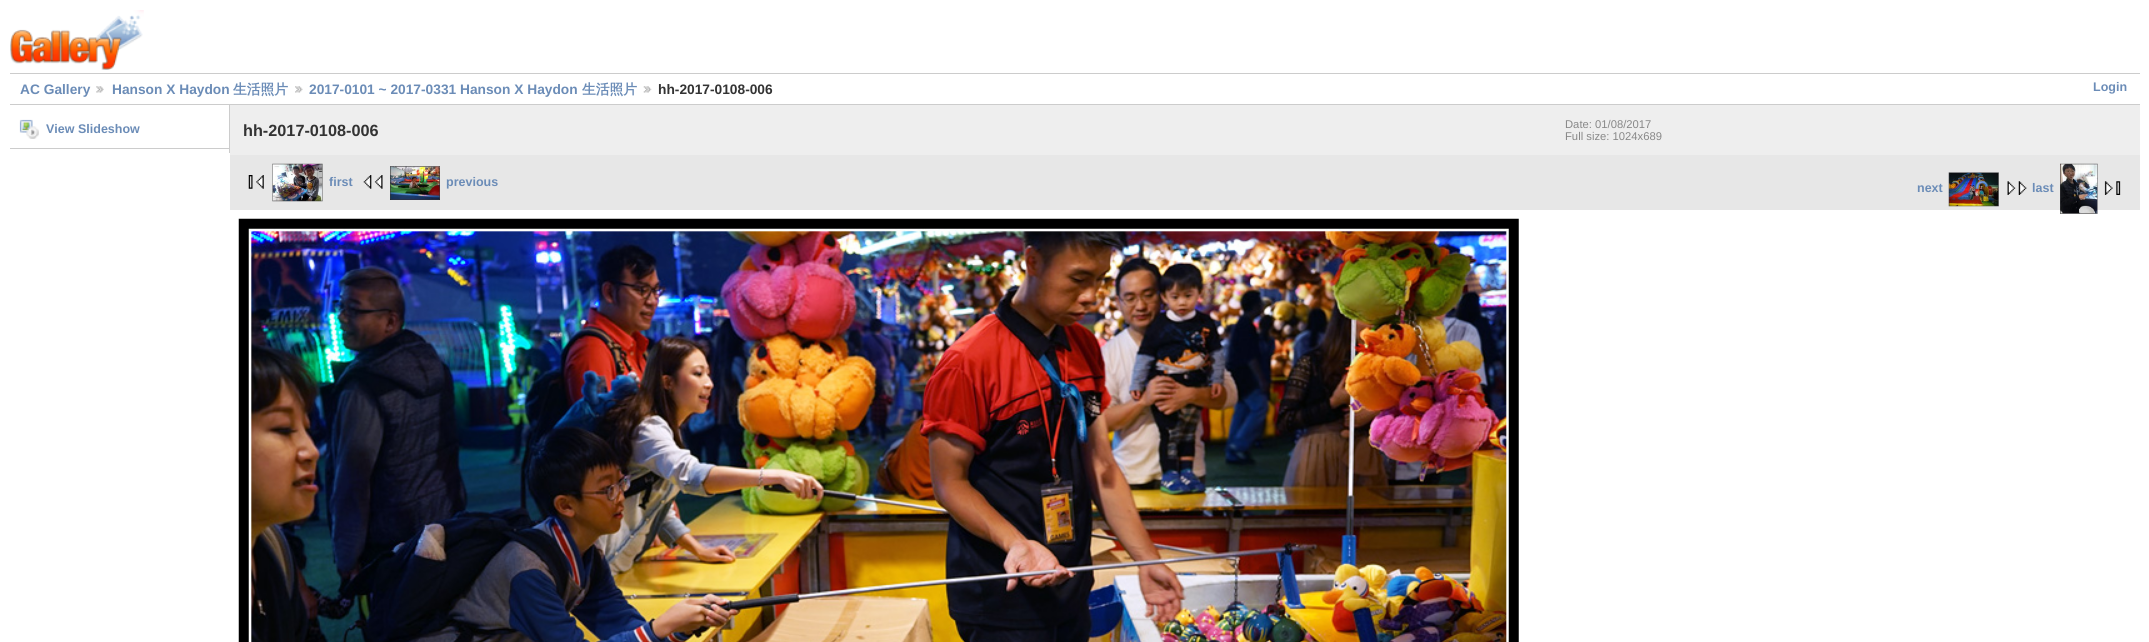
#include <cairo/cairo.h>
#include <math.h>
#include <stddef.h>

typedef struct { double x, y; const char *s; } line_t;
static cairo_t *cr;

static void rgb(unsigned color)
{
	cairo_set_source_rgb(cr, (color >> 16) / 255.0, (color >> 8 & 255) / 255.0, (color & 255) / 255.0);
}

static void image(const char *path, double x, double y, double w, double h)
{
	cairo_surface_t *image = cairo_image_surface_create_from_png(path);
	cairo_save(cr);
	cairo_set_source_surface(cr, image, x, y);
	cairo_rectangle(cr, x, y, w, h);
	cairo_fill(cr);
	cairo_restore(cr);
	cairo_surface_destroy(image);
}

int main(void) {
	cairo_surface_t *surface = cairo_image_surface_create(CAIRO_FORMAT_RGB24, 2149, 642);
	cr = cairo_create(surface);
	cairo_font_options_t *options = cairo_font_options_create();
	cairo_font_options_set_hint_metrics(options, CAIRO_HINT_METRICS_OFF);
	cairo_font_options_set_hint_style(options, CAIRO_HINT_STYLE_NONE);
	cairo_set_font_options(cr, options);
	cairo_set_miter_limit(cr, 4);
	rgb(0xffffff);
	cairo_paint(cr);
	image("img/1.png", 10, 10, 134, 60);
	rgb(0xcccccc);
	cairo_rectangle(cr, 10, 73, 2130, 1);
	cairo_fill(cr);
	cairo_rectangle(cr, 10, 104, 2130, 1);
	cairo_fill(cr);
	image("img/2.png", 96, 86, 8, 7);
	image("img/3.png", 295, 86, 8, 7);
	image("img/4.png", 643, 86, 9, 7);
	cairo_rectangle(cr, 229, 105, 1, 48);
	cairo_fill(cr);
	cairo_rectangle(cr, 10, 148, 219, 1);
	cairo_fill(cr);
	image("img/5.png", 19, 119, 20, 20);
	rgb(0xeeeeee);
	cairo_rectangle(cr, 230, 105, 1910, 50);
	cairo_fill(cr);
	rgb(0xe7e7e7);
	cairo_rectangle(cr, 230, 155, 1910, 55);
	cairo_fill(cr);
	image("img/6.png", 248, 175, 16, 14);
	image("img/7.png", 272, 163, 51, 39);
	image("img/8.png", 363, 175, 20, 14);
	image("img/9.png", 390, 166, 50, 34);
	image("img/10.png", 1948, 172, 51, 35);
	image("img/11.png", 2007, 181, 20, 14);
	image("img/12.png", 2060, 163, 38, 51);
	image("img/13.png", 2104, 181, 17, 14);
	image("img/14.png", 238, 218, 1281, 424);
	cairo_select_font_face(cr, "Liberation Sans", CAIRO_FONT_SLANT_NORMAL, CAIRO_FONT_WEIGHT_BOLD);
	cairo_set_font_size(cr, 13.75);
	rgb(0x6b8cb7);
	cairo_move_to(cr, 20, 94);
	cairo_show_text(cr, "AC Gallery");
	cairo_move_to(cr, 112, 94);
	cairo_show_text(cr, "Hanson X Haydon");
	cairo_select_font_face(cr, "WenQuanYi Zen Hei", CAIRO_FONT_SLANT_NORMAL, CAIRO_FONT_WEIGHT_BOLD);
	cairo_move_to(cr, 233, 94);
	cairo_show_text(cr, "生活照片");
	cairo_select_font_face(cr, "Liberation Sans", CAIRO_FONT_SLANT_NORMAL, CAIRO_FONT_WEIGHT_BOLD);
	cairo_move_to(cr, 309, 94);
	cairo_show_text(cr, "2017-0101 ~ 2017-0331 Hanson X Haydon");
	cairo_select_font_face(cr, "WenQuanYi Zen Hei", CAIRO_FONT_SLANT_NORMAL, CAIRO_FONT_WEIGHT_BOLD);
	cairo_move_to(cr, 582, 94);
	cairo_show_text(cr, "生活照片");
	cairo_select_font_face(cr, "Liberation Sans", CAIRO_FONT_SLANT_NORMAL, CAIRO_FONT_WEIGHT_BOLD);
	rgb(0x333333);
	cairo_move_to(cr, 658, 94);
	cairo_show_text(cr, "hh-2017-0108-006");
	cairo_set_font_size(cr, 12.5);
	rgb(0x6b8cb7);
	cairo_move_to(cr, 2093, 91);
	cairo_show_text(cr, "Login");
	cairo_move_to(cr, 46, 133);
	cairo_show_text(cr, "View Slideshow");
	cairo_set_font_size(cr, 16.25);
	rgb(0x333333);
	cairo_move_to(cr, 243, 136);
	cairo_show_text(cr, "hh-2017-0108-006");
	cairo_select_font_face(cr, "Liberation Sans", CAIRO_FONT_SLANT_NORMAL, CAIRO_FONT_WEIGHT_NORMAL);
	cairo_set_font_size(cr, 11.25);
	rgb(0x888888);
	cairo_move_to(cr, 1565, 128);
	cairo_show_text(cr, "Date: 01/08/2017");
	cairo_move_to(cr, 1565, 140);
	cairo_show_text(cr, "Full size: 1024x689");
	cairo_select_font_face(cr, "Liberation Sans", CAIRO_FONT_SLANT_NORMAL, CAIRO_FONT_WEIGHT_BOLD);
	cairo_set_font_size(cr, 12.5);
	rgb(0x6b8cb7);
	{
		static const line_t items[] = {
			{329, 186, "first"},
			{446, 186, "previous"},
			{1917, 192, "next"},
			{2032, 192, "last"},
		};
		for (size_t i = 0; i < sizeof items / sizeof *items; i++) {
			cairo_move_to(cr, items[i].x, items[i].y);
			cairo_show_text(cr, items[i].s);
		}
	}
	cairo_surface_write_to_png(surface, "page.png");
	cairo_font_options_destroy(options);
	cairo_destroy(cr);
	cairo_surface_destroy(surface);
	return 0;
}
